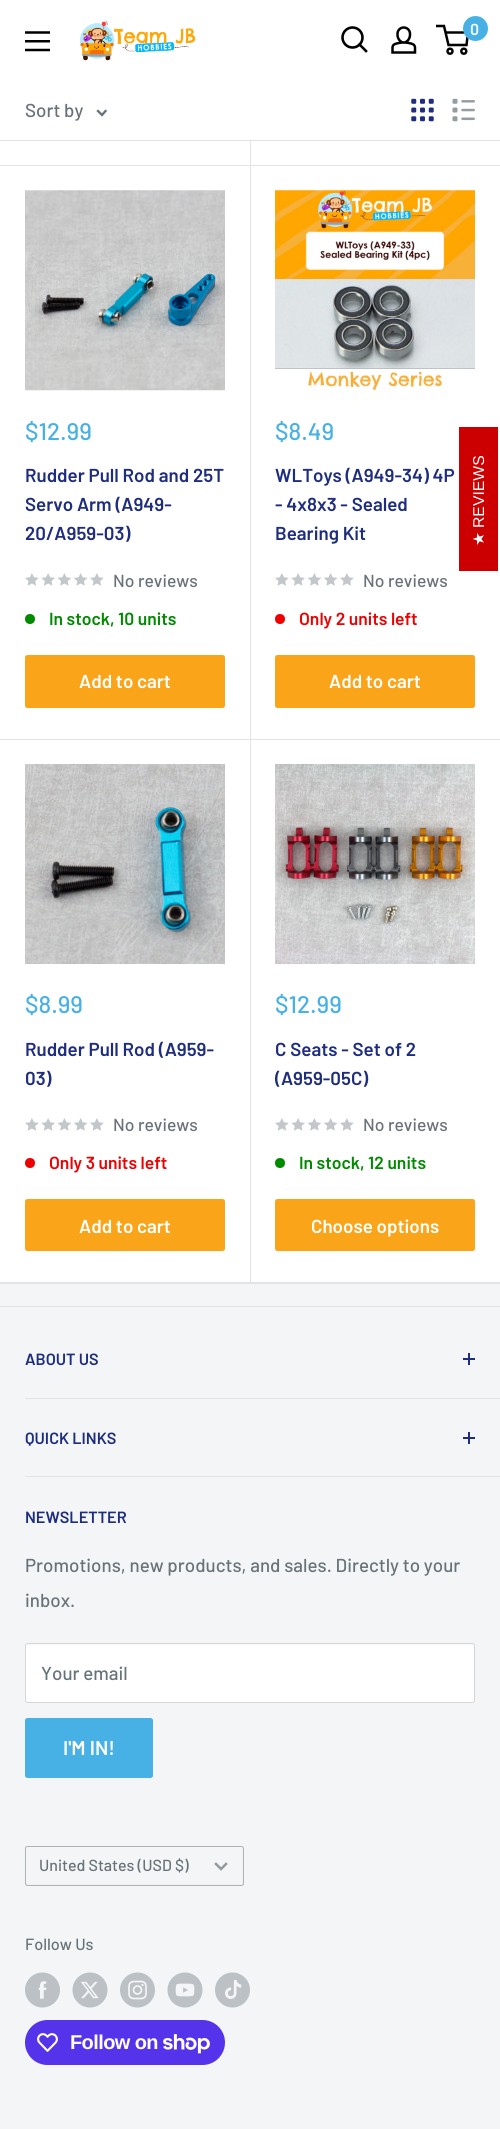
#include <cairo/cairo.h>
#include <math.h>
#include <stddef.h>

typedef struct { double x, y; const char *s; } line_t;
typedef struct { double x, y, w, h; unsigned color; } box_t;
static cairo_t *cr;

static void rgb(unsigned color)
{
	cairo_set_source_rgb(cr, (color >> 16) / 255.0, (color >> 8 & 255) / 255.0, (color & 255) / 255.0);
}

static void tracked(double x, double y, const char *s, double letter, double word)
{
	cairo_move_to(cr, x, y);
	while (*s) {
		char ch[5] = {0};
		int n = 0;
		do ch[n++] = *s++; while ((*s & 0xC0) == 0x80);
		cairo_show_text(cr, ch);
		cairo_rel_move_to(cr, letter + word * (*ch == ' '), 0);
	}
}

static void rrect(double x, double y, double w, double h, double r)
{
	cairo_new_sub_path(cr);
	cairo_arc(cr, x + w - r, y + h - r, r, 0, M_PI / 2);
	cairo_arc(cr, x + r, y + h - r, r, M_PI / 2, M_PI);
	cairo_arc(cr, x + r, y + r, r, M_PI, 1.5 * M_PI);
	cairo_arc(cr, x + w - r, y + r, r, 1.5 * M_PI, 2 * M_PI);
	cairo_close_path(cr);
}

static void image(const char *path, double x, double y, double w, double h)
{
	cairo_surface_t *image = cairo_image_surface_create_from_png(path);
	cairo_save(cr);
	cairo_set_source_surface(cr, image, x, y);
	cairo_rectangle(cr, x, y, w, h);
	cairo_fill(cr);
	cairo_restore(cr);
	cairo_surface_destroy(image);
}

int main(void) {
	cairo_surface_t *surface = cairo_image_surface_create(CAIRO_FORMAT_RGB24, 500, 2129);
	cr = cairo_create(surface);
	cairo_font_options_t *options = cairo_font_options_create();
	cairo_font_options_set_hint_metrics(options, CAIRO_HINT_METRICS_OFF);
	cairo_font_options_set_hint_style(options, CAIRO_HINT_STYLE_NONE);
	cairo_set_font_options(cr, options);
	cairo_set_miter_limit(cr, 4);
	rgb(0xf3f5f6);
	cairo_paint(cr);
	rgb(0xffffff);
	cairo_rectangle(cr, 0, 141, 500, 1141);
	cairo_fill(cr);
	rgb(0xe1e3e4);
	cairo_new_path(cr);
	cairo_move_to(cr, 1, -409);
	cairo_line_to(cr, 250, -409);
	cairo_line_to(cr, 250, 165);
	cairo_line_to(cr, 251, 165);
	cairo_line_to(cr, 251, -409);
	cairo_close_path(cr);
	cairo_fill(cr);
	rgb(0xffffff);
	cairo_rectangle(cr, 0, 0, 500, 140);
	cairo_fill(cr);
	image("img/1.png", 79, 20, 117, 41);
	cairo_new_path(cr);
	cairo_move_to(cr, 366, 51);
	cairo_line_to(cr, 359.5, 44.5);
	rgb(0x000000);
	cairo_set_line_width(cr, 2.6);
	cairo_set_line_cap(cr, CAIRO_LINE_CAP_SQUARE);
	cairo_stroke(cr);
	cairo_arc(cr, 352.5, 37.5, 10, 0, 2 * M_PI);
	cairo_set_line_cap(cr, CAIRO_LINE_CAP_BUTT);
	cairo_stroke(cr);
	image("img/2.png", 391, 26, 26, 28);
	cairo_arc(cr, 450, 51.2, 2.5, 0, 2 * M_PI);
	cairo_set_line_width(cr, 2.5);
	cairo_stroke(cr);
	cairo_arc(cr, 463.8, 51.2, 2.5, 0, 2 * M_PI);
	cairo_stroke(cr);
	cairo_new_path(cr);
	cairo_move_to(cr, 445.5, 32.5);
	cairo_line_to(cr, 468, 32.5);
	cairo_line_to(cr, 466.5, 45);
	cairo_line_to(cr, 448.5, 45);
	cairo_line_to(cr, 444, 26);
	cairo_line_to(cr, 436, 26);
	cairo_stroke(cr);
	rgb(0x47b1e5);
	cairo_arc(cr, 475.5, 28.5, 12.5, 0, 2 * M_PI);
	cairo_fill(cr);
	image("img/3.png", 25, 31, 25, 21);
	rgb(0xe1e3e4);
	cairo_rectangle(cr, 0, 1283, 500, 1);
	cairo_fill(cr);
	cairo_rectangle(cr, 0, 140, 500, 1);
	cairo_fill(cr);
	cairo_new_path(cr);
	cairo_move_to(cr, 105.5, 111);
	cairo_line_to(cr, 102, 115);
	cairo_line_to(cr, 98, 111);
	rgb(0x677279);
	cairo_set_line_width(cr, 2.3);
	cairo_set_line_cap(cr, CAIRO_LINE_CAP_SQUARE);
	cairo_stroke(cr);
	image("img/4.png", 411, 98, 23, 24);
	image("img/5.png", 452, 98, 23, 24);
	rgb(0xe1e3e4);
	cairo_rectangle(cr, 0, 165, 500, 1);
	cairo_fill(cr);
	cairo_rectangle(cr, 0, 739, 500, 1);
	cairo_fill(cr);
	cairo_new_path(cr);
	cairo_move_to(cr, 1, 739);
	cairo_line_to(cr, 251, 739);
	cairo_line_to(cr, 251, 165);
	cairo_line_to(cr, 250, 165);
	cairo_line_to(cr, 250, 739);
	cairo_close_path(cr);
	cairo_fill(cr);
	image("img/6.png", 25, 190, 200, 201);
	image("img/7.png", 25, 573, 14, 13);
	image("img/8.png", 41, 573, 14, 13);
	image("img/9.png", 57, 573, 14, 13);
	image("img/10.png", 74, 573, 14, 13);
	image("img/7.png", 90, 573, 14, 13);
	rgb(0x008a00);
	cairo_arc(cr, 30, 619, 5, 0, 2 * M_PI);
	cairo_fill(cr);
	rgb(0xfaa41a);
	rrect(25, 655, 200, 53, 2.5);
	cairo_fill(cr);
	image("img/11.png", 275, 190, 200, 201);
	image("img/7.png", 275, 573, 14, 13);
	image("img/8.png", 291, 573, 14, 13);
	image("img/9.png", 307, 573, 14, 13);
	image("img/10.png", 324, 573, 14, 13);
	image("img/7.png", 340, 573, 14, 13);
	rgb(0xee0000);
	cairo_arc(cr, 280, 619, 5, 0, 2 * M_PI);
	cairo_fill(cr);
	rgb(0xfaa41a);
	rrect(275, 655, 200, 53, 2.5);
	cairo_fill(cr);
	rgb(0xe1e3e4);
	cairo_rectangle(cr, 0, 1282, 1, 1);
	cairo_fill(cr);
	image("img/12.png", 25, 764, 200, 200);
	image("img/7.png", 25, 1118, 14, 13);
	image("img/8.png", 41, 1118, 14, 13);
	image("img/9.png", 57, 1118, 14, 13);
	image("img/10.png", 74, 1118, 14, 13);
	image("img/7.png", 90, 1118, 14, 13);
	rgb(0xee0000);
	cairo_arc(cr, 30, 1163, 5, 0, 2 * M_PI);
	cairo_fill(cr);
	rgb(0xfaa41a);
	rrect(25, 1199, 200, 52, 2.5);
	cairo_fill(cr);
	image("img/13.png", 275, 764, 200, 200);
	image("img/7.png", 275, 1118, 14, 13);
	image("img/8.png", 291, 1118, 14, 13);
	image("img/9.png", 307, 1118, 14, 13);
	image("img/10.png", 324, 1118, 14, 13);
	image("img/7.png", 340, 1118, 14, 13);
	rgb(0x008a00);
	cairo_arc(cr, 280, 1163, 5, 0, 2 * M_PI);
	cairo_fill(cr);
	rgb(0xfaa41a);
	rrect(275, 1199, 200, 52, 2.5);
	cairo_fill(cr);
	{
		static const box_t items[] = {
			{459, 427, 39, 144, 0xcc0000},
			{0, 1306, 500, 1, 0xe1e3e4},
			{25, 1398, 475, 1, 0xe1e3e4},
			{468, 1353, 2, 12, 0x1e2d7d},
			{463, 1358, 12, 2, 0x1e2d7d},
			{25, 1476, 475, 1, 0xe1e3e4},
			{468, 1432, 2, 12, 0x1e2d7d},
			{463, 1437, 12, 2, 0x1e2d7d},
		};
		for (size_t i = 0; i < sizeof items / sizeof *items; i++) {
			rgb(items[i].color);
			cairo_rectangle(cr, items[i].x, items[i].y, items[i].w, items[i].h);
			cairo_fill(cr);
		}
	}
	rgb(0xffffff);
	rrect(25, 1643, 450, 60, 2.5);
	cairo_fill(cr);
	rgb(0xf8f8f8);
	cairo_new_path(cr);
	cairo_move_to(cr, 28, 1645);
	cairo_line_to(cr, 472, 1645);
	cairo_line_to(cr, 474, 1646);
	cairo_curve_to(cr, 474, 1645, 474, 1644, 473, 1644);
	cairo_line_to(cr, 27, 1644);
	cairo_line_to(cr, 26, 1645);
	cairo_line_to(cr, 26, 1646);
	cairo_close_path(cr);
	cairo_fill(cr);
	rrect(25.5, 1643.5, 449, 59, 2);
	rgb(0xd4d6d8);
	cairo_set_line_width(cr, 1);
	cairo_set_line_cap(cr, CAIRO_LINE_CAP_BUTT);
	cairo_stroke(cr);
	rgb(0x47b1e5);
	rrect(25, 1718, 128, 60, 2.5);
	cairo_fill(cr);
	rgb(0xeef0f1);
	cairo_new_path(cr);
	cairo_move_to(cr, 26, 1882);
	cairo_line_to(cr, 26, 1884);
	cairo_curve_to(cr, 26, 1885, 26, 1885, 27, 1885);
	cairo_line_to(cr, 242, 1885);
	cairo_curve_to(cr, 243, 1885, 243, 1885, 243, 1884);
	cairo_line_to(cr, 243, 1849);
	cairo_curve_to(cr, 243, 1848, 243, 1848, 242, 1848);
	cairo_line_to(cr, 242, 1882);
	cairo_curve_to(cr, 242, 1883, 242, 1884, 241, 1884);
	cairo_line_to(cr, 28, 1884);
	cairo_curve_to(cr, 27, 1884, 26, 1883, 26, 1882);
	cairo_close_path(cr);
	cairo_fill(cr);
	rrect(25.5, 1846.5, 218, 39, 2);
	rgb(0xadb4b8);
	cairo_stroke(cr);
	cairo_new_path(cr);
	cairo_move_to(cr, 226, 1864);
	cairo_line_to(cr, 221, 1869);
	cairo_line_to(cr, 216, 1864);
	rgb(0x91999f);
	cairo_set_line_width(cr, 2.5);
	cairo_set_line_cap(cr, CAIRO_LINE_CAP_SQUARE);
	cairo_stroke(cr);
	image("img/14.png", 25, 1972, 35, 36);
	image("img/15.png", 72, 1972, 36, 36);
	image("img/16.png", 120, 1972, 35, 36);
	image("img/17.png", 167, 1972, 36, 36);
	image("img/18.png", 215, 1972, 35, 36);
	rgb(0x5433eb);
	rrect(25, 2020, 200, 45, 22.5);
	cairo_fill(cr);
	image("img/19.png", 37, 2033, 21, 19);
	image("img/20.png", 163, 2034, 47, 20);
	cairo_select_font_face(cr, "Barlow SemiBold", CAIRO_FONT_SLANT_NORMAL, CAIRO_FONT_WEIGHT_NORMAL);
	cairo_set_font_size(cr, 16);
	rgb(0xffffff);
	cairo_move_to(cr, 470, 35);
	cairo_show_text(cr, "0");
	cairo_select_font_face(cr, "Barlow Medium", CAIRO_FONT_SLANT_NORMAL, CAIRO_FONT_WEIGHT_NORMAL);
	cairo_set_font_size(cr, 18.75);
	rgb(0x677279);
	cairo_move_to(cr, 25, 117);
	cairo_show_text(cr, "Sort by");
	cairo_set_font_size(cr, 24);
	rgb(0x47b1e5);
	cairo_move_to(cr, 25, 440);
	cairo_show_text(cr, "$12.99");
	cairo_select_font_face(cr, "Barlow SemiBold", CAIRO_FONT_SLANT_NORMAL, CAIRO_FONT_WEIGHT_NORMAL);
	cairo_set_font_size(cr, 18.75);
	rgb(0x1e2d7d);
	{
		static const line_t items[] = {
			{25, 482, "Rudder Pull Rod and 25T"},
			{25, 511, "Servo Arm (A949-"},
			{25, 540, "20/A959-03)"},
		};
		for (size_t i = 0; i < sizeof items / sizeof *items; i++) {
			cairo_move_to(cr, items[i].x, items[i].y);
			cairo_show_text(cr, items[i].s);
		}
	}
	cairo_select_font_face(cr, "Barlow Medium", CAIRO_FONT_SLANT_NORMAL, CAIRO_FONT_WEIGHT_NORMAL);
	cairo_set_font_size(cr, 17.5);
	rgb(0x677279);
	cairo_move_to(cr, 113, 587);
	cairo_show_text(cr, "No reviews");
	cairo_select_font_face(cr, "Barlow SemiBold", CAIRO_FONT_SLANT_NORMAL, CAIRO_FONT_WEIGHT_NORMAL);
	rgb(0x008a00);
	cairo_move_to(cr, 49, 625);
	cairo_show_text(cr, "In stock, 10 units");
	cairo_set_font_size(cr, 18.75);
	rgb(0xffffff);
	cairo_move_to(cr, 79, 688);
	cairo_show_text(cr, "Add to cart");
	cairo_select_font_face(cr, "Barlow Medium", CAIRO_FONT_SLANT_NORMAL, CAIRO_FONT_WEIGHT_NORMAL);
	cairo_set_font_size(cr, 24);
	rgb(0x47b1e5);
	cairo_move_to(cr, 275, 440);
	cairo_show_text(cr, "$8.49");
	cairo_select_font_face(cr, "Barlow SemiBold", CAIRO_FONT_SLANT_NORMAL, CAIRO_FONT_WEIGHT_NORMAL);
	cairo_set_font_size(cr, 18.75);
	rgb(0x1e2d7d);
	{
		static const line_t items[] = {
			{275, 482, "WLToys (A949-34) 4P"},
			{275, 511, "- 4x8x3 - Sealed"},
			{275, 540, "Bearing Kit"},
		};
		for (size_t i = 0; i < sizeof items / sizeof *items; i++) {
			cairo_move_to(cr, items[i].x, items[i].y);
			cairo_show_text(cr, items[i].s);
		}
	}
	cairo_select_font_face(cr, "Barlow Medium", CAIRO_FONT_SLANT_NORMAL, CAIRO_FONT_WEIGHT_NORMAL);
	cairo_set_font_size(cr, 17.5);
	rgb(0x677279);
	cairo_move_to(cr, 363, 587);
	cairo_show_text(cr, "No reviews");
	cairo_select_font_face(cr, "Barlow SemiBold", CAIRO_FONT_SLANT_NORMAL, CAIRO_FONT_WEIGHT_NORMAL);
	rgb(0xee0000);
	cairo_move_to(cr, 299, 625);
	cairo_show_text(cr, "Only 2 units left");
	cairo_set_font_size(cr, 18.75);
	rgb(0xffffff);
	cairo_move_to(cr, 329, 688);
	cairo_show_text(cr, "Add to cart");
	cairo_select_font_face(cr, "Barlow Medium", CAIRO_FONT_SLANT_NORMAL, CAIRO_FONT_WEIGHT_NORMAL);
	cairo_set_font_size(cr, 24);
	rgb(0x47b1e5);
	cairo_move_to(cr, 25, 1013);
	cairo_show_text(cr, "$8.99");
	cairo_select_font_face(cr, "Barlow SemiBold", CAIRO_FONT_SLANT_NORMAL, CAIRO_FONT_WEIGHT_NORMAL);
	cairo_set_font_size(cr, 18.75);
	rgb(0x1e2d7d);
	cairo_move_to(cr, 25, 1056);
	cairo_show_text(cr, "Rudder Pull Rod (A959-");
	cairo_move_to(cr, 25, 1085);
	cairo_show_text(cr, "03)");
	cairo_select_font_face(cr, "Barlow Medium", CAIRO_FONT_SLANT_NORMAL, CAIRO_FONT_WEIGHT_NORMAL);
	cairo_set_font_size(cr, 17.5);
	rgb(0x677279);
	cairo_move_to(cr, 113, 1131);
	cairo_show_text(cr, "No reviews");
	cairo_select_font_face(cr, "Barlow SemiBold", CAIRO_FONT_SLANT_NORMAL, CAIRO_FONT_WEIGHT_NORMAL);
	rgb(0xee0000);
	cairo_move_to(cr, 49, 1169);
	cairo_show_text(cr, "Only 3 units left");
	cairo_set_font_size(cr, 18.75);
	rgb(0xffffff);
	cairo_move_to(cr, 79, 1233);
	cairo_show_text(cr, "Add to cart");
	rgb(0xe1e3e4);
	cairo_new_path(cr);
	cairo_move_to(cr, 1, 1282);
	cairo_line_to(cr, 1, 1283);
	cairo_line_to(cr, 251, 1283);
	cairo_line_to(cr, 251, 739);
	cairo_line_to(cr, 250, 739);
	cairo_line_to(cr, 250, 1282);
	cairo_close_path(cr);
	cairo_fill(cr);
	cairo_select_font_face(cr, "Barlow Medium", CAIRO_FONT_SLANT_NORMAL, CAIRO_FONT_WEIGHT_NORMAL);
	cairo_set_font_size(cr, 24);
	rgb(0x47b1e5);
	cairo_move_to(cr, 275, 1013);
	cairo_show_text(cr, "$12.99");
	cairo_select_font_face(cr, "Barlow SemiBold", CAIRO_FONT_SLANT_NORMAL, CAIRO_FONT_WEIGHT_NORMAL);
	cairo_set_font_size(cr, 18.75);
	rgb(0x1e2d7d);
	cairo_move_to(cr, 275, 1056);
	cairo_show_text(cr, "C Seats - Set of 2");
	cairo_move_to(cr, 275, 1085);
	cairo_show_text(cr, "(A959-05C)");
	cairo_select_font_face(cr, "Barlow Medium", CAIRO_FONT_SLANT_NORMAL, CAIRO_FONT_WEIGHT_NORMAL);
	cairo_set_font_size(cr, 17.5);
	rgb(0x677279);
	cairo_move_to(cr, 363, 1131);
	cairo_show_text(cr, "No reviews");
	cairo_select_font_face(cr, "Barlow SemiBold", CAIRO_FONT_SLANT_NORMAL, CAIRO_FONT_WEIGHT_NORMAL);
	rgb(0x008a00);
	cairo_move_to(cr, 299, 1169);
	cairo_show_text(cr, "In stock, 12 units");
	cairo_set_font_size(cr, 18.75);
	rgb(0xffffff);
	cairo_move_to(cr, 311, 1233);
	cairo_show_text(cr, "Choose options");
	rgb(0xe1e3e4);
	cairo_rectangle(cr, 250, 1282, 250, 1);
	cairo_fill(cr);
	cairo_select_font_face(cr, "Liberation Sans", CAIRO_FONT_SLANT_NORMAL, CAIRO_FONT_WEIGHT_NORMAL);
	cairo_set_font_size(cr, 15.75);
	rgb(0xffffff);
	cairo_save(cr);
	cairo_translate(cr, 484, 528);
	cairo_rotate(cr, -90 * M_PI / 180);
	cairo_move_to(cr, 0, 0);
	cairo_show_text(cr, "REVIEWS");
	cairo_restore(cr);
	cairo_select_font_face(cr, "DejaVu Sans", CAIRO_FONT_SLANT_NORMAL, CAIRO_FONT_WEIGHT_NORMAL);
	cairo_save(cr);
	cairo_translate(cr, 484, 546);
	cairo_rotate(cr, -90 * M_PI / 180);
	cairo_move_to(cr, 0, 0);
	cairo_show_text(cr, "★");
	cairo_restore(cr);
	cairo_select_font_face(cr, "Barlow SemiBold", CAIRO_FONT_SLANT_NORMAL, CAIRO_FONT_WEIGHT_NORMAL);
	cairo_set_font_size(cr, 16.25);
	rgb(0x1e2d7d);
	{
		static const line_t items[] = {
			{25, 1365, "ABOUT US"},
			{25, 1444, "QUICK LINKS"},
			{25, 1523, "NEWSLETTER"},
		};
		for (size_t i = 0; i < sizeof items / sizeof *items; i++) {
			cairo_move_to(cr, items[i].x, items[i].y);
			cairo_show_text(cr, items[i].s);
		}
	}
	cairo_select_font_face(cr, "Barlow Medium", CAIRO_FONT_SLANT_NORMAL, CAIRO_FONT_WEIGHT_NORMAL);
	cairo_set_font_size(cr, 18.75);
	rgb(0x677279);
	{
		static const line_t items[] = {
			{25, 1572, "Promotions, new products, and sales. Directly to your"},
			{25, 1607, "inbox."},
			{41, 1680, "Your email"},
		};
		for (size_t i = 0; i < sizeof items / sizeof *items; i++) {
			cairo_move_to(cr, items[i].x, items[i].y);
			cairo_show_text(cr, items[i].s);
		}
	}
	cairo_select_font_face(cr, "Barlow SemiBold", CAIRO_FONT_SLANT_NORMAL, CAIRO_FONT_WEIGHT_NORMAL);
	cairo_set_font_size(cr, 20);
	rgb(0xffffff);
	cairo_move_to(cr, 63, 1755);
	cairo_show_text(cr, "I'M IN!");
	cairo_select_font_face(cr, "Barlow Medium", CAIRO_FONT_SLANT_NORMAL, CAIRO_FONT_WEIGHT_NORMAL);
	cairo_set_font_size(cr, 16);
	rgb(0x677279);
	cairo_move_to(cr, 39, 1871);
	cairo_show_text(cr, "United States (USD $)");
	cairo_set_font_size(cr, 16.25);
	cairo_move_to(cr, 25, 1950);
	cairo_show_text(cr, "Follow Us");
	cairo_select_font_face(cr, "Liberation Sans", CAIRO_FONT_SLANT_NORMAL, CAIRO_FONT_WEIGHT_BOLD);
	cairo_set_font_size(cr, 20);
	rgb(0xffffff);
	tracked(70, 2049, "Follow on", -0.6, 0);
	cairo_surface_write_to_png(surface, "page.png");
	cairo_font_options_destroy(options);
	cairo_destroy(cr);
	cairo_surface_destroy(surface);
	return 0;
}
